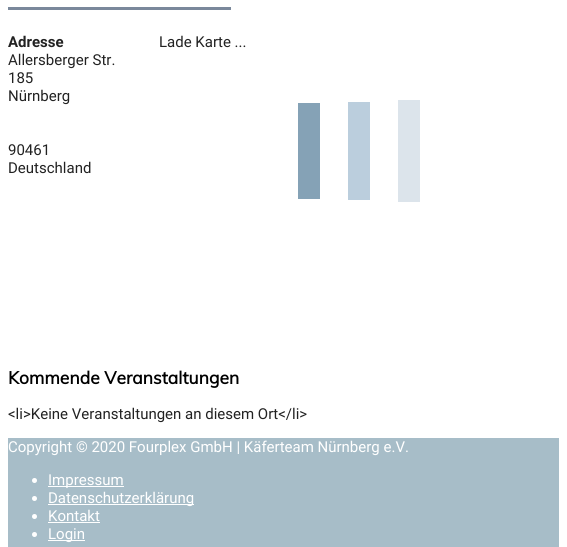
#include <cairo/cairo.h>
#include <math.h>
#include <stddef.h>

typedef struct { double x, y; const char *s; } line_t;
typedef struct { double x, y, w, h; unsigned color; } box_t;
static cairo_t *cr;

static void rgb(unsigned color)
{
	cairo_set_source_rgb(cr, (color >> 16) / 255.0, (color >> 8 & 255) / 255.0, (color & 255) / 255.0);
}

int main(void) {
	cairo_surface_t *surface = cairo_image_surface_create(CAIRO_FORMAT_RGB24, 567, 547);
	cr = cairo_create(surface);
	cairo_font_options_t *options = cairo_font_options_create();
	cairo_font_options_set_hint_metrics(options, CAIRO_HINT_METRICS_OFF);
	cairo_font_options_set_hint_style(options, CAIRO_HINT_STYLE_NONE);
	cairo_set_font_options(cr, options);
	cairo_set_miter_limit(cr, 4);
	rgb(0xffffff);
	cairo_paint(cr);
	{
		static const box_t items[] = {
			{8, 7, 223, 3, 0x7a889b},
			{298, 103, 22, 96, 0x85a2b6},
			{348, 102, 22, 98, 0xbbcedd},
			{398, 100, 22, 102, 0xdce4eb},
			{8, 438, 551, 109, 0xa7bdc8},
		};
		for (size_t i = 0; i < sizeof items / sizeof *items; i++) {
			rgb(items[i].color);
			cairo_rectangle(cr, items[i].x, items[i].y, items[i].w, items[i].h);
			cairo_fill(cr);
		}
	}
	rgb(0xffffff);
	cairo_arc(cr, 34.5, 480.5, 2.5, 0, 2 * M_PI);
	cairo_fill(cr);
	cairo_rectangle(cr, 48, 486, 76, 1);
	cairo_fill(cr);
	cairo_arc(cr, 34.5, 498.5, 2.5, 0, 2 * M_PI);
	cairo_fill(cr);
	cairo_rectangle(cr, 48, 504, 146, 1);
	cairo_fill(cr);
	cairo_arc(cr, 34.5, 516.5, 2.5, 0, 2 * M_PI);
	cairo_fill(cr);
	cairo_rectangle(cr, 48, 522, 52, 1);
	cairo_fill(cr);
	cairo_arc(cr, 34.5, 534.5, 2.5, 0, 2 * M_PI);
	cairo_fill(cr);
	cairo_rectangle(cr, 48, 540, 37, 1);
	cairo_fill(cr);
	cairo_select_font_face(cr, "Roboto", CAIRO_FONT_SLANT_NORMAL, CAIRO_FONT_WEIGHT_BOLD);
	cairo_set_font_size(cr, 15);
	rgb(0x222222);
	cairo_move_to(cr, 8, 47);
	cairo_show_text(cr, "Adresse");
	cairo_select_font_face(cr, "Roboto", CAIRO_FONT_SLANT_NORMAL, CAIRO_FONT_WEIGHT_NORMAL);
	{
		static const line_t items[] = {
			{8, 65, "Allersberger Str."},
			{8, 83, "185"},
			{8, 101, "Nürnberg"},
			{8, 155, "90461"},
			{8, 173, "Deutschland"},
			{159, 47, "Lade Karte ..."},
		};
		for (size_t i = 0; i < sizeof items / sizeof *items; i++) {
			cairo_move_to(cr, items[i].x, items[i].y);
			cairo_show_text(cr, items[i].s);
		}
	}
	cairo_select_font_face(cr, "Muli", CAIRO_FONT_SLANT_NORMAL, CAIRO_FONT_WEIGHT_BOLD);
	cairo_set_font_size(cr, 17.5);
	rgb(0x000000);
	cairo_move_to(cr, 8, 384);
	cairo_show_text(cr, "Kommende Veranstaltungen");
	cairo_select_font_face(cr, "Roboto", CAIRO_FONT_SLANT_NORMAL, CAIRO_FONT_WEIGHT_NORMAL);
	cairo_set_font_size(cr, 15);
	rgb(0x222222);
	cairo_move_to(cr, 8, 419);
	cairo_show_text(cr, "<li>Keine Veranstaltungen an diesem Ort</li>");
	rgb(0xffffff);
	{
		static const line_t items[] = {
			{8, 452, "Copyright © 2020 Fourplex GmbH | Käferteam Nürnberg e.V."},
			{48, 485, "Impressum"},
			{48, 503, "Datenschutzerklärung"},
			{48, 521, "Kontakt"},
			{48, 539, "Login"},
		};
		for (size_t i = 0; i < sizeof items / sizeof *items; i++) {
			cairo_move_to(cr, items[i].x, items[i].y);
			cairo_show_text(cr, items[i].s);
		}
	}
	cairo_surface_write_to_png(surface, "page.png");
	cairo_font_options_destroy(options);
	cairo_destroy(cr);
	cairo_surface_destroy(surface);
	return 0;
}
